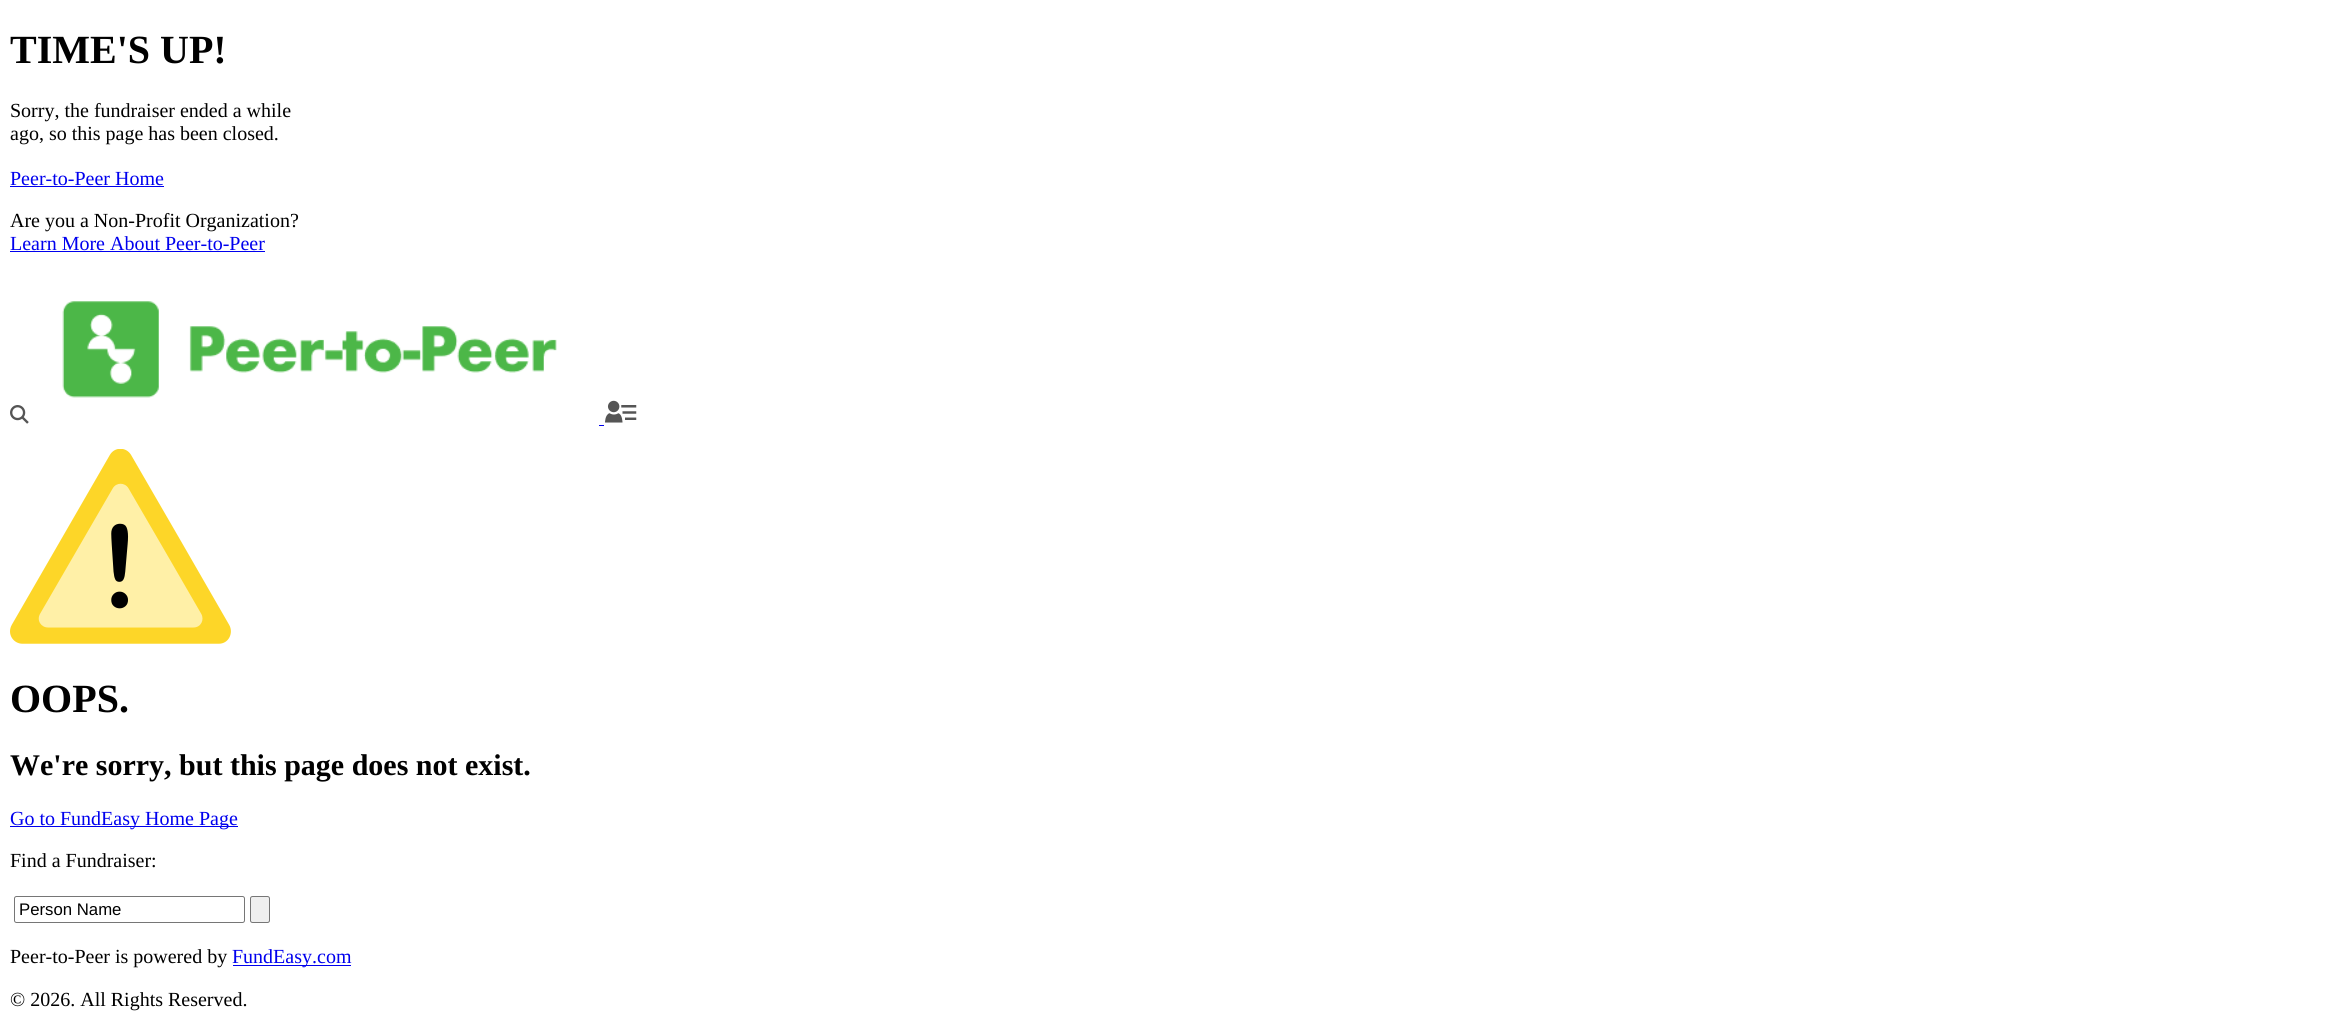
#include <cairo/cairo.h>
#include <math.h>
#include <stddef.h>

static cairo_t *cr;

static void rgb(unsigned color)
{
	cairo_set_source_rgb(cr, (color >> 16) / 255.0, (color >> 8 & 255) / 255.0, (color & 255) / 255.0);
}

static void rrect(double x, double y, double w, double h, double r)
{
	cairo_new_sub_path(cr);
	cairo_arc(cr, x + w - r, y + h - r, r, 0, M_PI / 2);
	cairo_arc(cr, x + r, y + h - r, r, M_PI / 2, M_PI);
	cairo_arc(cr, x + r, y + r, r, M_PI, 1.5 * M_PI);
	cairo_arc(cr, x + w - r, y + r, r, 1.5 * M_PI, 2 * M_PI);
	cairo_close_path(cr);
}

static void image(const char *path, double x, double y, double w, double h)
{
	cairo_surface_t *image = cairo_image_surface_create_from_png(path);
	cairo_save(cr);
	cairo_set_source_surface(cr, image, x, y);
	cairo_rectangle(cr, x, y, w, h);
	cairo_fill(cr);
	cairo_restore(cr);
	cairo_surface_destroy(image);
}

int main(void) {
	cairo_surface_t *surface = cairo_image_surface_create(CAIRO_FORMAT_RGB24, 2334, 1019);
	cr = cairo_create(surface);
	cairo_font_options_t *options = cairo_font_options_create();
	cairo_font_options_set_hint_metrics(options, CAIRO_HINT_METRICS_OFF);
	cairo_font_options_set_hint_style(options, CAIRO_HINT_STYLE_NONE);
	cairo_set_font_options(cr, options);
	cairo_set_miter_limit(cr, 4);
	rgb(0xffffff);
	cairo_paint(cr);
	rgb(0x0000ee);
	cairo_rectangle(cr, 10, 186, 154, 1);
	cairo_fill(cr);
	cairo_rectangle(cr, 10, 251, 255, 1);
	cairo_fill(cr);
	image("img/1.png", 62, 301, 495, 97);
	image("img/2.png", 10, 405, 19, 19);
	image("img/3.png", 605, 400, 32, 23);
	cairo_rectangle(cr, 599, 425, 5, 1);
	cairo_fill(cr);
	image("img/4.png", 10, 449, 221, 195);
	cairo_rectangle(cr, 10, 826, 228, 1);
	cairo_fill(cr);
	rrect(14.5, 896.5, 230, 26, 2);
	rgb(0x767676);
	cairo_set_line_width(cr, 1);
	cairo_stroke(cr);
	rgb(0xefefef);
	rrect(250.5, 896.5, 19, 26, 2);
	cairo_fill_preserve(cr);
	rgb(0x767676);
	cairo_stroke(cr);
	rgb(0x0000ee);
	cairo_rectangle(cr, 233, 965, 118, 1);
	cairo_fill(cr);
	cairo_select_font_face(cr, "Liberation Serif", CAIRO_FONT_SLANT_NORMAL, CAIRO_FONT_WEIGHT_BOLD);
	cairo_set_font_size(cr, 40);
	rgb(0x000000);
	cairo_move_to(cr, 10, 63);
	cairo_show_text(cr, "TIME'S UP!");
	cairo_select_font_face(cr, "Liberation Serif", CAIRO_FONT_SLANT_NORMAL, CAIRO_FONT_WEIGHT_NORMAL);
	cairo_set_font_size(cr, 20);
	cairo_move_to(cr, 10, 117);
	cairo_show_text(cr, "Sorry, the fundraiser ended a while");
	cairo_move_to(cr, 10, 140);
	cairo_show_text(cr, "ago, so this page has been closed.");
	rgb(0x0000ee);
	cairo_move_to(cr, 10, 185);
	cairo_show_text(cr, "Peer-to-Peer Home");
	rgb(0x000000);
	cairo_move_to(cr, 10, 227);
	cairo_show_text(cr, "Are you a Non-Profit Organization?");
	rgb(0x0000ee);
	cairo_move_to(cr, 10, 250);
	cairo_show_text(cr, "Learn More About Peer-to-Peer");
	cairo_select_font_face(cr, "Liberation Serif", CAIRO_FONT_SLANT_NORMAL, CAIRO_FONT_WEIGHT_BOLD);
	cairo_set_font_size(cr, 40);
	rgb(0x000000);
	cairo_move_to(cr, 10, 712);
	cairo_show_text(cr, "OOPS.");
	cairo_set_font_size(cr, 30);
	cairo_move_to(cr, 10, 775);
	cairo_show_text(cr, "We're sorry, but this page does not exist.");
	cairo_select_font_face(cr, "Liberation Serif", CAIRO_FONT_SLANT_NORMAL, CAIRO_FONT_WEIGHT_NORMAL);
	cairo_set_font_size(cr, 20);
	rgb(0x0000ee);
	cairo_move_to(cr, 10, 825);
	cairo_show_text(cr, "Go to FundEasy Home Page");
	rgb(0x000000);
	cairo_move_to(cr, 10, 867);
	cairo_show_text(cr, "Find a Fundraiser:");
	cairo_select_font_face(cr, "Liberation Sans", CAIRO_FONT_SLANT_NORMAL, CAIRO_FONT_WEIGHT_NORMAL);
	cairo_set_font_size(cr, 16.75);
	cairo_move_to(cr, 19, 915);
	cairo_show_text(cr, "Person Name");
	cairo_select_font_face(cr, "Liberation Serif", CAIRO_FONT_SLANT_NORMAL, CAIRO_FONT_WEIGHT_NORMAL);
	cairo_set_font_size(cr, 20);
	cairo_move_to(cr, 10, 963);
	cairo_show_text(cr, "Peer-to-Peer is powered by");
	rgb(0x0000ee);
	cairo_move_to(cr, 232, 963);
	cairo_show_text(cr, "FundEasy.com");
	rgb(0x000000);
	cairo_move_to(cr, 10, 1006);
	cairo_show_text(cr, "© 2026. All Rights Reserved.");
	cairo_surface_write_to_png(surface, "page.png");
	cairo_font_options_destroy(options);
	cairo_destroy(cr);
	cairo_surface_destroy(surface);
	return 0;
}
